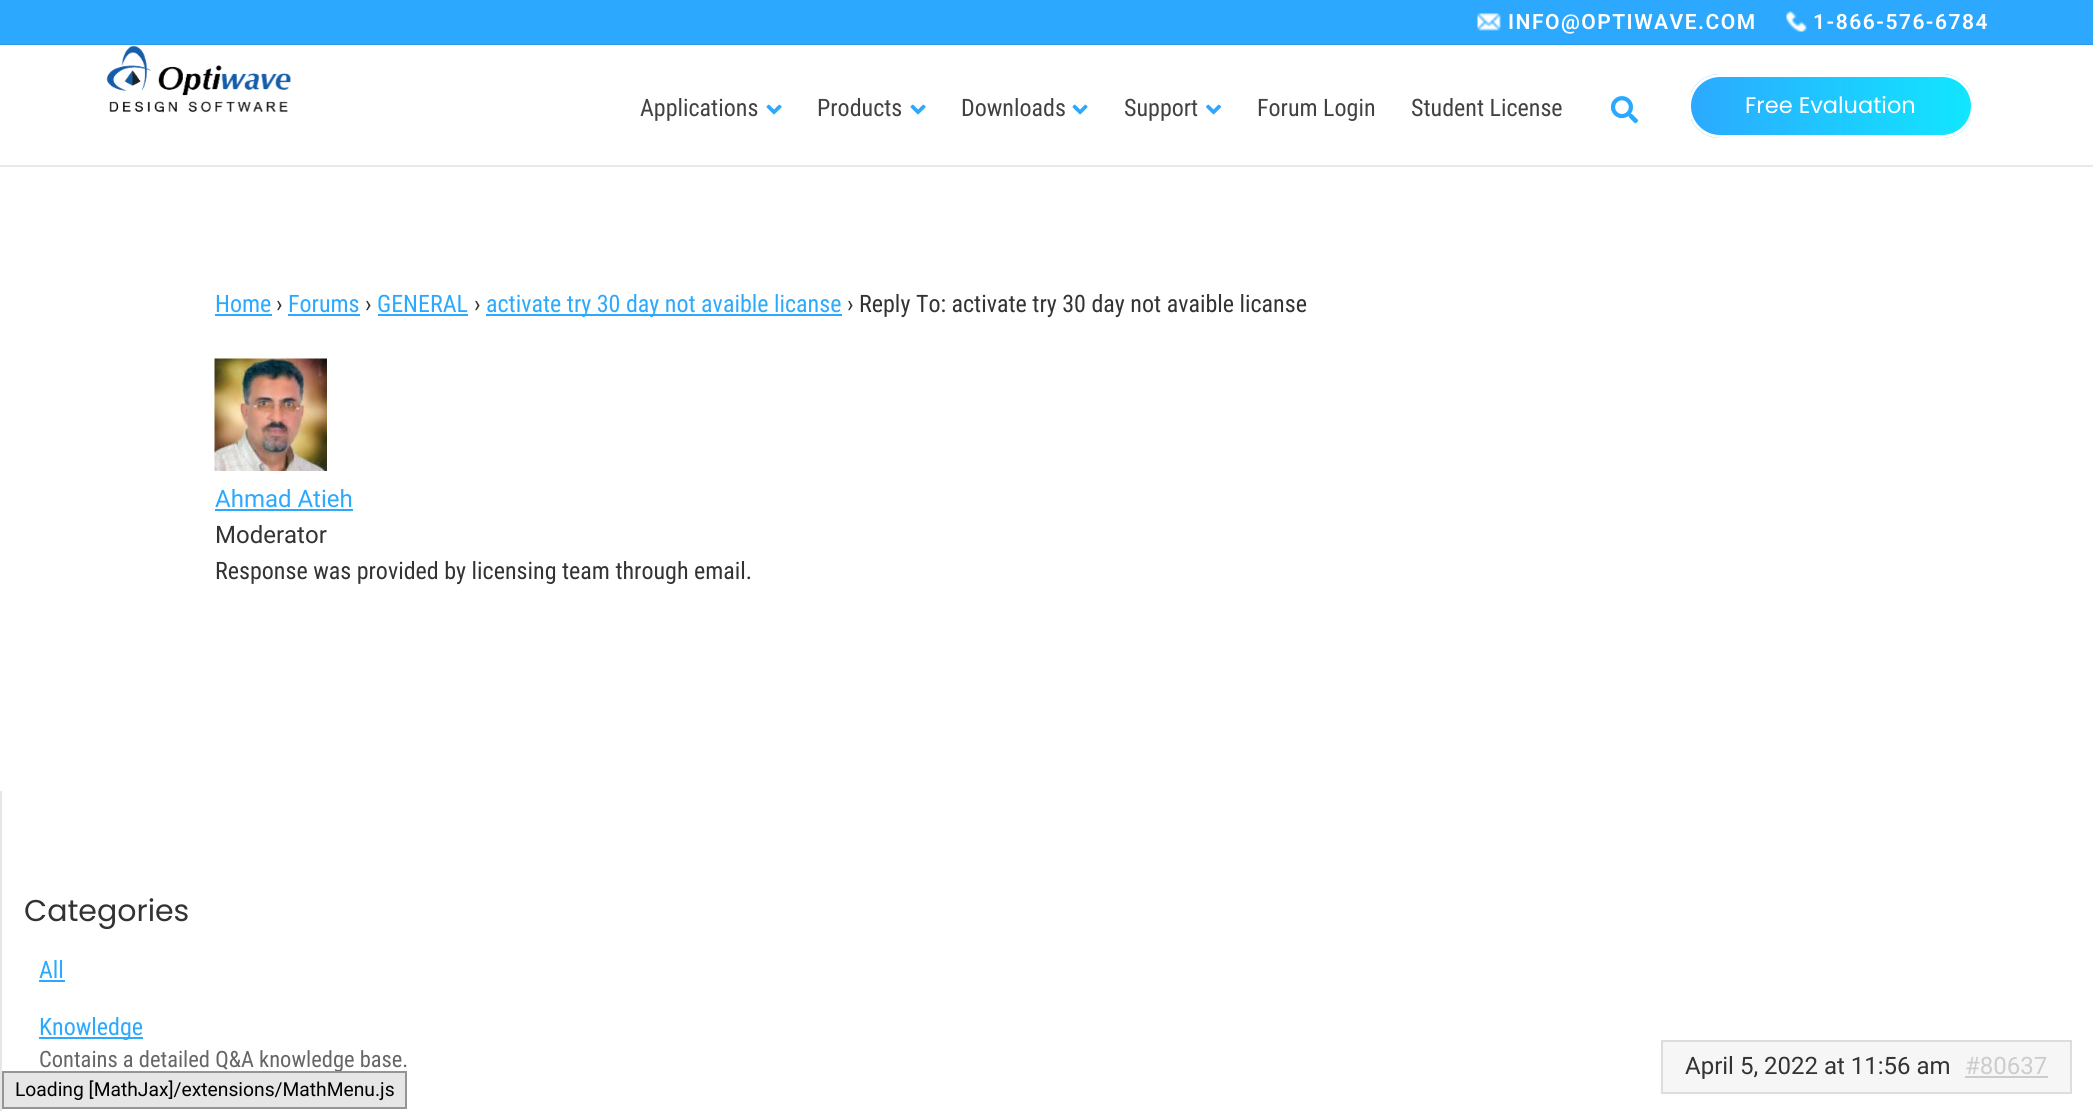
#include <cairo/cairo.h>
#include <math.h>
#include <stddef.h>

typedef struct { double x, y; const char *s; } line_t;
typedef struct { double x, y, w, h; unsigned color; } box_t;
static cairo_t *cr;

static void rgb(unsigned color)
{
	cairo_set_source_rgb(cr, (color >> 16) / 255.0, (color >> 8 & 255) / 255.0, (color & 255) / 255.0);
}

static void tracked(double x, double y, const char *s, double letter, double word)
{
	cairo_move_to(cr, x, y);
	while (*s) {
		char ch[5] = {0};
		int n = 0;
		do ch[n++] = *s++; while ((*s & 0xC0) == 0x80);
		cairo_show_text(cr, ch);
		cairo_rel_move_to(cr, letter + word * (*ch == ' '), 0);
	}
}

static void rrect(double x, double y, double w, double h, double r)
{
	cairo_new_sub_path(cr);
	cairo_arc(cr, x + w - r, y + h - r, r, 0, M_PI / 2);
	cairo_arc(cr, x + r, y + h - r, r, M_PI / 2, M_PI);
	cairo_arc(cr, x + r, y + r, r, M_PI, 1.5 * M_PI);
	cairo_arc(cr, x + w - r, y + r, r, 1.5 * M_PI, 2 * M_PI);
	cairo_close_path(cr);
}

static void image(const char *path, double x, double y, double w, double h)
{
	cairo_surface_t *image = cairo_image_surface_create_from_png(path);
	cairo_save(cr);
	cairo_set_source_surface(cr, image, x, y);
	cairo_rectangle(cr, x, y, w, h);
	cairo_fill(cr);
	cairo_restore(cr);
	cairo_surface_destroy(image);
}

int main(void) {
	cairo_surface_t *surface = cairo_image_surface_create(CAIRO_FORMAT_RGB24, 2093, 1111);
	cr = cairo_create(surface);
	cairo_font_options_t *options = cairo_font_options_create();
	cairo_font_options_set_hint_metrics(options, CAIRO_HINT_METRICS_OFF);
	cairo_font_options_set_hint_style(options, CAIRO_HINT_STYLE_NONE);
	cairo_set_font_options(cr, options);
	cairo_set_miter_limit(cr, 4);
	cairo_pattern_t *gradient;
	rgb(0xffffff);
	cairo_paint(cr);
	rgb(0x2ca9ff);
	cairo_rectangle(cr, 0, 0, 2093, 44);
	cairo_fill(cr);
	rgb(0x2b9ce9);
	cairo_rectangle(cr, 0, 44, 2093, 1);
	cairo_fill(cr);
	image("img/1.png", 1477, 13, 24, 18);
	image("img/2.png", 1786, 11, 21, 21);
	rgb(0xe9e9e9);
	cairo_rectangle(cr, 0, 165, 2093, 2);
	cairo_fill(cr);
	image("img/3.png", 106, 45, 186, 68);
	image("img/4.png", 766, 104, 16, 11);
	image("img/4.png", 910, 104, 16, 11);
	image("img/4.png", 1072, 104, 16, 11);
	image("img/5.png", 1206, 104, 15, 11);
	image("img/6.png", 1610, 96, 29, 28);
	cairo_save(cr);
	rrect(1688, 74, 286, 64, 32);
	cairo_clip(cr);
	gradient = cairo_pattern_create_linear(1691, 106, 1971, 106);
	cairo_pattern_add_color_stop_rgba(gradient, 0, 0.173, 0.663, 1, 1);
	cairo_pattern_add_color_stop_rgba(gradient, 1, 0.067, 0.902, 1, 1);
	cairo_set_source(cr, gradient);
	cairo_pattern_destroy(gradient);
	cairo_rectangle(cr, 1691, 74, 280, 64);
	cairo_fill(cr);
	cairo_restore(cr);
	rrect(1689.5, 75.5, 283, 61, 30.5);
	rgb(0xffffff);
	cairo_set_line_width(cr, 3);
	cairo_stroke(cr);
	{
		static const box_t items[] = {
			{215, 314, 57, 2, 0x2ca9ff},
			{288, 314, 72, 2, 0x2ca9ff},
			{378, 314, 90, 2, 0x2ca9ff},
			{486, 314, 356, 2, 0x2ca9ff},
		};
		for (size_t i = 0; i < sizeof items / sizeof *items; i++) {
			rgb(items[i].color);
			cairo_rectangle(cr, items[i].x, items[i].y, items[i].w, items[i].h);
			cairo_fill(cr);
		}
	}
	image("img/7.png", 214, 358, 113, 113);
	cairo_rectangle(cr, 215, 509, 138, 2);
	cairo_fill(cr);
	rgb(0xf6f6f6);
	cairo_rectangle(cr, 1662, 1041, 409, 52);
	cairo_fill_preserve(cr);
	rgb(0xdddddd);
	cairo_set_line_width(cr, 2);
	cairo_stroke(cr);
	{
		static const box_t items[] = {
			{1965, 1076, 83, 2, 0xcccccc},
			{0, 791, 2, 320, 0xe6e6e6},
			{39, 980, 26, 2, 0x2ca9ff},
			{39, 1037, 104, 2, 0x2ca9ff},
		};
		for (size_t i = 0; i < sizeof items / sizeof *items; i++) {
			rgb(items[i].color);
			cairo_rectangle(cr, items[i].x, items[i].y, items[i].w, items[i].h);
			cairo_fill(cr);
		}
	}
	cairo_select_font_face(cr, "Roboto SemiBold", CAIRO_FONT_SLANT_NORMAL, CAIRO_FONT_WEIGHT_NORMAL);
	cairo_set_font_size(cr, 21);
	rgb(0xffffff);
	tracked(1508, 29, "INFO@OPTIWAVE.COM", 1.5, 0);
	tracked(1813, 29, "1-866-576-6784", 1.5, 0);
	cairo_select_font_face(cr, "Roboto Condensed", CAIRO_FONT_SLANT_NORMAL, CAIRO_FONT_WEIGHT_NORMAL);
	cairo_set_font_size(cr, 24);
	rgb(0x424242);
	{
		static const line_t items[] = {
			{640, 116, "Applications"},
			{817, 116, "Products"},
			{961, 116, "Downloads"},
			{1124, 116, "Support"},
			{1257, 116, "Forum Login"},
			{1411, 116, "Student License"},
		};
		for (size_t i = 0; i < sizeof items / sizeof *items; i++) {
			cairo_move_to(cr, items[i].x, items[i].y);
			cairo_show_text(cr, items[i].s);
		}
	}
	cairo_select_font_face(cr, "Poppins", CAIRO_FONT_SLANT_NORMAL, CAIRO_FONT_WEIGHT_NORMAL);
	cairo_set_font_size(cr, 22.5);
	rgb(0xffffff);
	cairo_move_to(cr, 1745, 113);
	cairo_show_text(cr, "Free Evaluation");
	cairo_select_font_face(cr, "Roboto Condensed", CAIRO_FONT_SLANT_NORMAL, CAIRO_FONT_WEIGHT_NORMAL);
	cairo_set_font_size(cr, 24);
	rgb(0x2ca9ff);
	cairo_move_to(cr, 215, 312);
	cairo_show_text(cr, "Home");
	rgb(0x333333);
	cairo_move_to(cr, 276, 312);
	cairo_show_text(cr, "›");
	rgb(0x2ca9ff);
	cairo_move_to(cr, 288, 312);
	cairo_show_text(cr, "Forums");
	rgb(0x333333);
	cairo_move_to(cr, 365, 312);
	cairo_show_text(cr, "›");
	rgb(0x2ca9ff);
	cairo_move_to(cr, 377, 312);
	cairo_show_text(cr, "GENERAL");
	rgb(0x333333);
	cairo_move_to(cr, 474, 312);
	cairo_show_text(cr, "›");
	rgb(0x2ca9ff);
	cairo_move_to(cr, 486, 312);
	cairo_show_text(cr, "activate try 30 day not avaible licanse");
	rgb(0x333333);
	cairo_move_to(cr, 847, 312);
	cairo_show_text(cr, "› Reply To: activate try 30 day not avaible licanse");
	cairo_select_font_face(cr, "Roboto", CAIRO_FONT_SLANT_NORMAL, CAIRO_FONT_WEIGHT_NORMAL);
	rgb(0x2ca9ff);
	cairo_move_to(cr, 215, 507);
	cairo_show_text(cr, "Ahmad Atieh");
	rgb(0x333333);
	cairo_move_to(cr, 215, 543);
	cairo_show_text(cr, "Moderator");
	cairo_select_font_face(cr, "Roboto Condensed", CAIRO_FONT_SLANT_NORMAL, CAIRO_FONT_WEIGHT_NORMAL);
	cairo_move_to(cr, 215, 579);
	cairo_show_text(cr, "Response was provided by licensing team through email.");
	cairo_select_font_face(cr, "Roboto", CAIRO_FONT_SLANT_NORMAL, CAIRO_FONT_WEIGHT_NORMAL);
	cairo_move_to(cr, 1685, 1074);
	cairo_show_text(cr, "April 5, 2022 at 11:56 am");
	rgb(0xcccccc);
	cairo_move_to(cr, 1965, 1074);
	cairo_show_text(cr, "#80637");
	cairo_select_font_face(cr, "Poppins", CAIRO_FONT_SLANT_NORMAL, CAIRO_FONT_WEIGHT_NORMAL);
	cairo_set_font_size(cr, 30);
	rgb(0x333333);
	cairo_move_to(cr, 24, 921);
	cairo_show_text(cr, "Categories");
	cairo_select_font_face(cr, "Roboto Condensed", CAIRO_FONT_SLANT_NORMAL, CAIRO_FONT_WEIGHT_NORMAL);
	cairo_set_font_size(cr, 24);
	rgb(0x2ca9ff);
	cairo_move_to(cr, 39, 978);
	cairo_show_text(cr, "All");
	cairo_move_to(cr, 39, 1035);
	cairo_show_text(cr, "Knowledge");
	cairo_set_font_size(cr, 22.5);
	rgb(0x666666);
	cairo_move_to(cr, 39, 1067);
	cairo_show_text(cr, "Contains a detailed Q&A knowledge base.");
	rgb(0xe6e6e6);
	cairo_rectangle(cr, 3, 1072, 403, 36);
	cairo_fill_preserve(cr);
	rgb(0x959595);
	cairo_stroke(cr);
	cairo_select_font_face(cr, "Roboto", CAIRO_FONT_SLANT_NORMAL, CAIRO_FONT_WEIGHT_NORMAL);
	cairo_set_font_size(cr, 19.25);
	rgb(0x000000);
	cairo_move_to(cr, 15, 1096);
	cairo_show_text(cr, "Loading [MathJax]/extensions/MathMenu.js");
	cairo_surface_write_to_png(surface, "page.png");
	cairo_font_options_destroy(options);
	cairo_destroy(cr);
	cairo_surface_destroy(surface);
	return 0;
}
